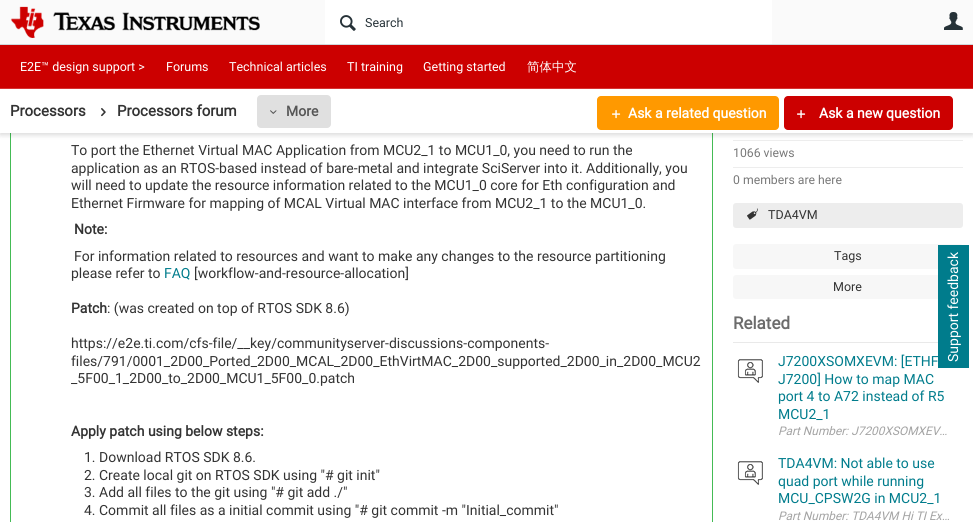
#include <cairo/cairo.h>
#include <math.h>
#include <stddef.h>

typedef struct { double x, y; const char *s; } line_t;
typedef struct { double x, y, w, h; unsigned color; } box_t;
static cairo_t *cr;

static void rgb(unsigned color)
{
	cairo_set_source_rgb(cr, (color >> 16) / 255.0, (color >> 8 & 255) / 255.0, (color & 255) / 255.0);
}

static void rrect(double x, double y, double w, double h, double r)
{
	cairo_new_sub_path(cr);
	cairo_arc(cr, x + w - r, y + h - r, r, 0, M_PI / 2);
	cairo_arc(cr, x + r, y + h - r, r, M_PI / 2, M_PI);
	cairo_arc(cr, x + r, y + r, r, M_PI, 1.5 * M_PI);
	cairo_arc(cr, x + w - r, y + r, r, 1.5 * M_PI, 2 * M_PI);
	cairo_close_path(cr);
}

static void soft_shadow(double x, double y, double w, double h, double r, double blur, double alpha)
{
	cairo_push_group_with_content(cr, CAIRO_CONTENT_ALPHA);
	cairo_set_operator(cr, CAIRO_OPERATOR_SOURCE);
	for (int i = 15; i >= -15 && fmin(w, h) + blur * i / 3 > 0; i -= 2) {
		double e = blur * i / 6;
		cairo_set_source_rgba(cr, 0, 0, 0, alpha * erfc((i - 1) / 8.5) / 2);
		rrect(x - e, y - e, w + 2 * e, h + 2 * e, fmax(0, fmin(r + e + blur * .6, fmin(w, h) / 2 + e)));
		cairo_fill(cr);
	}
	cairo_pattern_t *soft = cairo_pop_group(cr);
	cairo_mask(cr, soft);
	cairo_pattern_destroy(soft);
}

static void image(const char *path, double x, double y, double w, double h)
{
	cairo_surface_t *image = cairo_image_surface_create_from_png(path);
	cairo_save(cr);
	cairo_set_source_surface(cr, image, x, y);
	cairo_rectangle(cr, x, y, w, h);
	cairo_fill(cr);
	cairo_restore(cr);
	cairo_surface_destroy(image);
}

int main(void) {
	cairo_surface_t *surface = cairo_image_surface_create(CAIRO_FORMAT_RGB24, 973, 522);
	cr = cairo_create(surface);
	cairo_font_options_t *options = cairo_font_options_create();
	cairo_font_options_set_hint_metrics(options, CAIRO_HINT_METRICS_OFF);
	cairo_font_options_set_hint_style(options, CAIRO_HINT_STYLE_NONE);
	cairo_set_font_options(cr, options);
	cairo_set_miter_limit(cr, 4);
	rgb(0xffffff);
	cairo_paint(cr);
	cairo_rectangle(cr, 10.5, 10.5, 702, 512);
	rgb(0x44bb55);
	cairo_set_line_width(cr, 1);
	cairo_stroke(cr);
	rgb(0xededed);
	cairo_rectangle(cr, 733, 140, 230, 1);
	cairo_fill(cr);
	rgb(0x000000);
	soft_shadow(0, 2, 973, 133, 0, 2.5, 0.15);
	{
		static const box_t items[] = {
			{0, 89, 973, 44, 0xffffff},
			{0, 0, 973, 44, 0xfafafa},
			{0, 44, 973, 1, 0xcfd8dc},
		};
		for (size_t i = 0; i < sizeof items / sizeof *items; i++) {
			rgb(items[i].color);
			cairo_rectangle(cr, items[i].x, items[i].y, items[i].w, items[i].h);
			cairo_fill(cr);
		}
	}
	image("img/1.png", 10, 6, 250, 32);
	rgb(0xffffff);
	cairo_rectangle(cr, 325, 0, 447, 44);
	cairo_fill(cr);
	image("img/2.png", 340, 15, 16, 16);
	image("img/3.png", 944, 12, 19, 18);
	rgb(0xcc0000);
	cairo_rectangle(cr, 0, 45, 973, 43);
	cairo_fill(cr);
	rgb(0xd63333);
	cairo_rectangle(cr, 0, 88, 973, 1);
	cairo_fill(cr);
	image("img/4.png", 101, 108, 5, 9);
	rgb(0xe0e0e0);
	rrect(257, 95, 74, 33, 4);
	cairo_fill(cr);
	image("img/5.png", 270, 110, 7, 4);
	rgb(0xff9900);
	rrect(597, 96, 182, 34, 4);
	cairo_fill(cr);
	image("img/6.png", 612, 110, 9, 9);
	rgb(0xcc0000);
	rrect(784, 96, 169, 34, 4);
	cairo_fill(cr);
	image("img/7.png", 797, 110, 9, 9);
	rgb(0xededed);
	cairo_rectangle(cr, 733, 167, 230, 1);
	cairo_fill(cr);
	rrect(733, 203, 230, 25, 3);
	cairo_fill(cr);
	image("img/8.png", 747, 208, 11, 12);
	rgb(0xf7f7f7);
	rrect(733, 244, 230, 25, 3);
	cairo_fill(cr);
	rrect(733, 275, 230, 24, 3);
	cairo_fill(cr);
	rgb(0x007c8c);
	cairo_rectangle(cr, 938, 245, 31, 123);
	cairo_fill(cr);
	rgb(0xe9e9e9);
	cairo_rectangle(cr, 733, 342, 205, 1);
	cairo_fill(cr);
	image("img/9.png", 737, 359, 26, 24);
	image("img/10.png", 738, 359, 25, 24);
	image("img/9.png", 737, 461, 26, 24);
	image("img/10.png", 738, 461, 25, 24);
	cairo_select_font_face(cr, "Roboto", CAIRO_FONT_SLANT_NORMAL, CAIRO_FONT_WEIGHT_NORMAL);
	cairo_set_font_size(cr, 12.5);
	rgb(0x263238);
	cairo_move_to(cr, 365, 27);
	cairo_show_text(cr, "Search");
	rgb(0xffffff);
	{
		static const line_t items[] = {
			{20, 71, "E2E™ design support >"},
			{166, 71, "Forums"},
			{229, 71, "Technical articles"},
			{347, 71, "TI training"},
			{423, 71, "Getting started"},
		};
		for (size_t i = 0; i < sizeof items / sizeof *items; i++) {
			cairo_move_to(cr, items[i].x, items[i].y);
			cairo_show_text(cr, items[i].s);
		}
	}
	cairo_select_font_face(cr, "WenQuanYi Zen Hei Medium", CAIRO_FONT_SLANT_NORMAL, CAIRO_FONT_WEIGHT_NORMAL);
	cairo_move_to(cr, 527, 71);
	cairo_show_text(cr, "简体中文");
	cairo_select_font_face(cr, "Roboto", CAIRO_FONT_SLANT_NORMAL, CAIRO_FONT_WEIGHT_BOLD);
	cairo_set_font_size(cr, 15);
	rgb(0x333333);
	cairo_move_to(cr, 10, 116);
	cairo_show_text(cr, "Processors");
	cairo_move_to(cr, 117, 116);
	cairo_show_text(cr, "Processors forum");
	cairo_set_font_size(cr, 14);
	rgb(0x555555);
	cairo_move_to(cr, 286, 116);
	cairo_show_text(cr, "More");
	rgb(0xffffff);
	cairo_move_to(cr, 628, 118);
	cairo_show_text(cr, "Ask a related question");
	cairo_move_to(cr, 819, 118);
	cairo_show_text(cr, "Ask a new question");
	cairo_select_font_face(cr, "Roboto", CAIRO_FONT_SLANT_NORMAL, CAIRO_FONT_WEIGHT_NORMAL);
	rgb(0x333333);
	{
		static const line_t items[] = {
			{71, 155, "To port the Ethernet Virtual MAC Application from MCU2_1 to MCU1_0, you need to run the"},
			{71, 173, "application as an RTOS-based instead of bare-metal and integrate SciServer into it. Additionally, you"},
			{71, 190, "will need to update the resource information related to the MCU1_0 core for Eth configuration and"},
			{71, 208, "Ethernet Firmware for mapping of MCAL Virtual MAC interface from MCU2_1 to the MCU1_0."},
		};
		for (size_t i = 0; i < sizeof items / sizeof *items; i++) {
			cairo_move_to(cr, items[i].x, items[i].y);
			cairo_show_text(cr, items[i].s);
		}
	}
	cairo_select_font_face(cr, "Roboto", CAIRO_FONT_SLANT_NORMAL, CAIRO_FONT_WEIGHT_BOLD);
	cairo_move_to(cr, 74, 234);
	cairo_show_text(cr, "Note:");
	cairo_select_font_face(cr, "Roboto", CAIRO_FONT_SLANT_NORMAL, CAIRO_FONT_WEIGHT_NORMAL);
	cairo_move_to(cr, 74, 261);
	cairo_show_text(cr, "For information related to resources and want to make any changes to the resource partitioning");
	cairo_move_to(cr, 71, 278);
	cairo_show_text(cr, "please refer to");
	rgb(0x007c8c);
	cairo_move_to(cr, 164, 278);
	cairo_show_text(cr, "FAQ");
	rgb(0x333333);
	cairo_move_to(cr, 194, 278);
	cairo_show_text(cr, "[workflow-and-resource-allocation]");
	cairo_select_font_face(cr, "Roboto", CAIRO_FONT_SLANT_NORMAL, CAIRO_FONT_WEIGHT_BOLD);
	cairo_move_to(cr, 71, 313);
	cairo_show_text(cr, "Patch");
	cairo_select_font_face(cr, "Roboto", CAIRO_FONT_SLANT_NORMAL, CAIRO_FONT_WEIGHT_NORMAL);
	{
		static const line_t items[] = {
			{107, 313, ": (was created on top of RTOS SDK 8.6)"},
			{71, 348, "https://e2e.ti.com/cfs-file/__key/communityserver-discussions-components-"},
			{71, 366, "files/791/0001_2D00_Ported_2D00_MCAL_2D00_EthVirtMAC_2D00_supported_2D00_in_2D00_MCU2"},
			{71, 383, "_5F00_1_2D00_to_2D00_MCU1_5F00_0.patch"},
		};
		for (size_t i = 0; i < sizeof items / sizeof *items; i++) {
			cairo_move_to(cr, items[i].x, items[i].y);
			cairo_show_text(cr, items[i].s);
		}
	}
	cairo_select_font_face(cr, "Roboto", CAIRO_FONT_SLANT_NORMAL, CAIRO_FONT_WEIGHT_BOLD);
	cairo_move_to(cr, 71, 436);
	cairo_show_text(cr, "Apply patch using below steps:");
	cairo_select_font_face(cr, "Roboto", CAIRO_FONT_SLANT_NORMAL, CAIRO_FONT_WEIGHT_NORMAL);
	{
		static const line_t items[] = {
			{84, 462, "1. Download RTOS SDK 8.6."},
			{84, 480, "2. Create local git on RTOS SDK using \"# git init\""},
			{84, 497, "3. Add all files to the git using \"# git add ./\""},
			{84, 515, "4. Commit all files as a initial commit using \"# git commit -m \"Initial_commit\""},
		};
		for (size_t i = 0; i < sizeof items / sizeof *items; i++) {
			cairo_move_to(cr, items[i].x, items[i].y);
			cairo_show_text(cr, items[i].s);
		}
	}
	cairo_set_font_size(cr, 12.25);
	rgb(0x787878);
	cairo_move_to(cr, 733, 157);
	cairo_show_text(cr, "1066 views");
	cairo_move_to(cr, 733, 184);
	cairo_show_text(cr, "0 members are here");
	cairo_set_font_size(cr, 12.5);
	rgb(0x333333);
	cairo_move_to(cr, 768, 219);
	cairo_show_text(cr, "TDA4VM");
	cairo_move_to(cr, 834, 260);
	cairo_show_text(cr, "Tags");
	cairo_set_font_size(cr, 14);
	rgb(0xffffff);
	cairo_save(cr);
	cairo_translate(cr, 958, 362);
	cairo_rotate(cr, -90 * M_PI / 180);
	cairo_move_to(cr, 0, 0);
	cairo_show_text(cr, "Support feedback");
	cairo_restore(cr);
	cairo_set_font_size(cr, 12.5);
	rgb(0x333333);
	cairo_move_to(cr, 833, 291);
	cairo_show_text(cr, "More");
	cairo_select_font_face(cr, "Roboto", CAIRO_FONT_SLANT_NORMAL, CAIRO_FONT_WEIGHT_BOLD);
	cairo_set_font_size(cr, 17);
	rgb(0x6c6c6c);
	cairo_move_to(cr, 733, 329);
	cairo_show_text(cr, "Related");
	cairo_select_font_face(cr, "Roboto", CAIRO_FONT_SLANT_NORMAL, CAIRO_FONT_WEIGHT_NORMAL);
	cairo_set_font_size(cr, 14);
	rgb(0x007c8c);
	{
		static const line_t items[] = {
			{778, 366, "J7200XSOMXEVM: [ETHF"},
			{778, 384, "J7200] How to map MAC"},
			{778, 401, "port 4 to A72 instead of R5"},
			{778, 419, "MCU2_1"},
		};
		for (size_t i = 0; i < sizeof items / sizeof *items; i++) {
			cairo_move_to(cr, items[i].x, items[i].y);
			cairo_show_text(cr, items[i].s);
		}
	}
	cairo_select_font_face(cr, "Roboto", CAIRO_FONT_SLANT_ITALIC, CAIRO_FONT_WEIGHT_NORMAL);
	cairo_set_font_size(cr, 11.9);
	rgb(0xa3a3a3);
	cairo_move_to(cr, 778, 435);
	cairo_show_text(cr, "Part Number: J7200XSOMXEV…");
	cairo_select_font_face(cr, "Roboto", CAIRO_FONT_SLANT_NORMAL, CAIRO_FONT_WEIGHT_NORMAL);
	cairo_set_font_size(cr, 14);
	rgb(0x007c8c);
	{
		static const line_t items[] = {
			{778, 468, "TDA4VM: Not able to use"},
			{778, 486, "quad port while running"},
			{778, 503, "MCU_CPSW2G in MCU2_1"},
		};
		for (size_t i = 0; i < sizeof items / sizeof *items; i++) {
			cairo_move_to(cr, items[i].x, items[i].y);
			cairo_show_text(cr, items[i].s);
		}
	}
	cairo_select_font_face(cr, "Roboto", CAIRO_FONT_SLANT_ITALIC, CAIRO_FONT_WEIGHT_NORMAL);
	cairo_set_font_size(cr, 11.9);
	rgb(0xa3a3a3);
	cairo_move_to(cr, 778, 520);
	cairo_show_text(cr, "Part Number: TDA4VM Hi TI Ex…");
	cairo_surface_write_to_png(surface, "page.png");
	cairo_font_options_destroy(options);
	cairo_destroy(cr);
	cairo_surface_destroy(surface);
	return 0;
}
